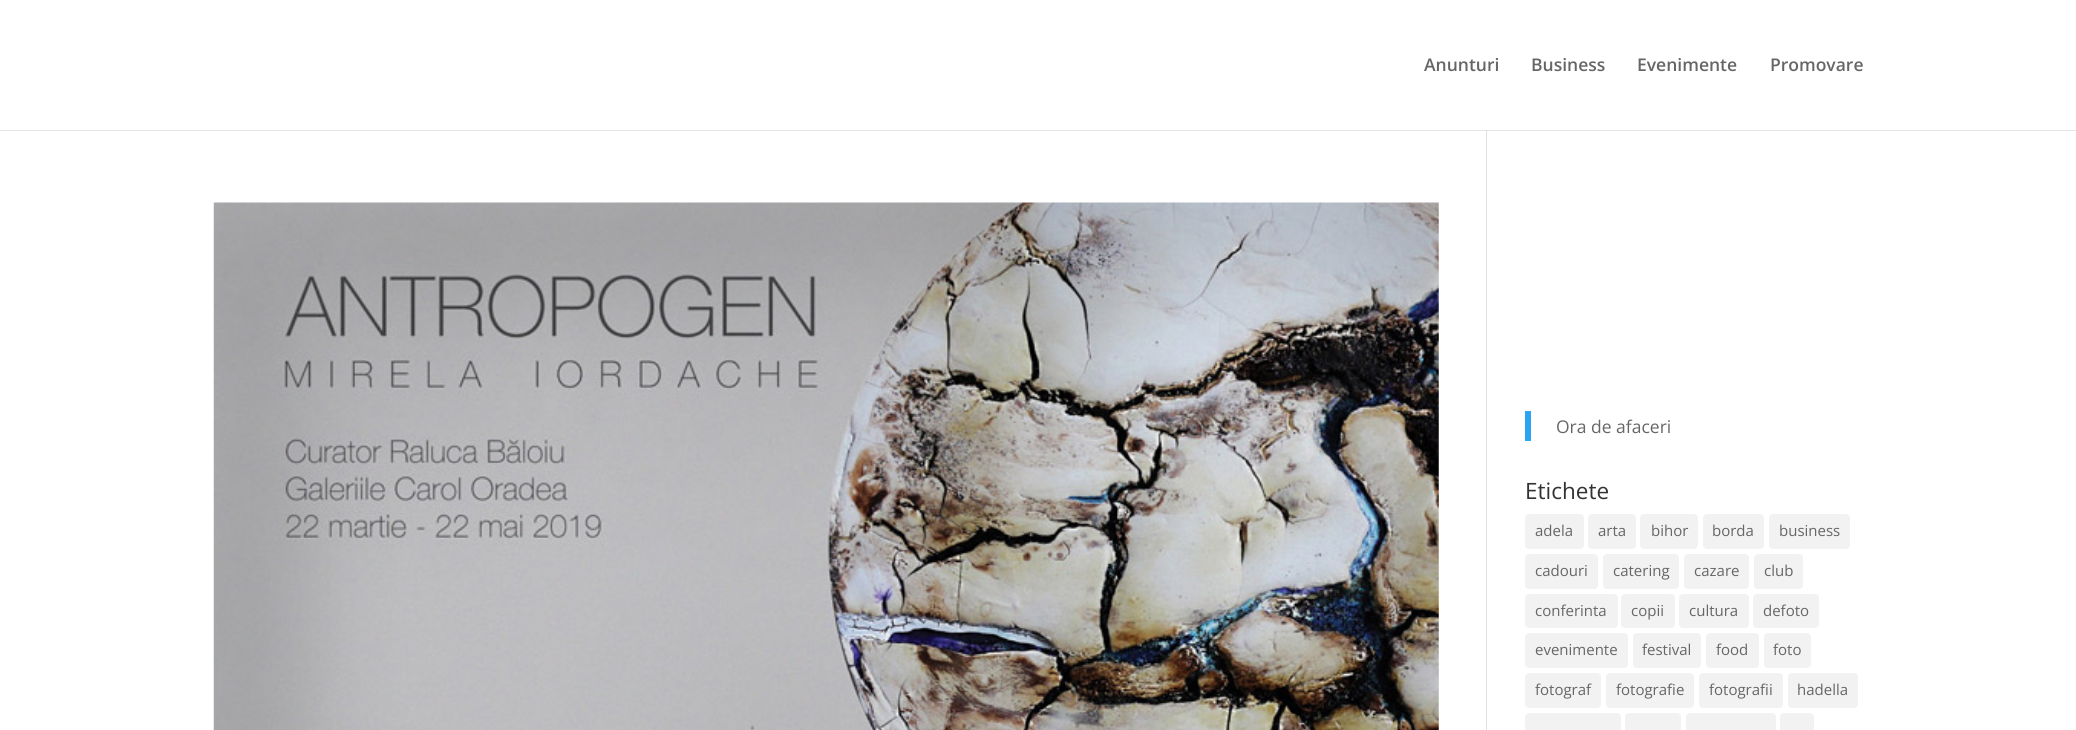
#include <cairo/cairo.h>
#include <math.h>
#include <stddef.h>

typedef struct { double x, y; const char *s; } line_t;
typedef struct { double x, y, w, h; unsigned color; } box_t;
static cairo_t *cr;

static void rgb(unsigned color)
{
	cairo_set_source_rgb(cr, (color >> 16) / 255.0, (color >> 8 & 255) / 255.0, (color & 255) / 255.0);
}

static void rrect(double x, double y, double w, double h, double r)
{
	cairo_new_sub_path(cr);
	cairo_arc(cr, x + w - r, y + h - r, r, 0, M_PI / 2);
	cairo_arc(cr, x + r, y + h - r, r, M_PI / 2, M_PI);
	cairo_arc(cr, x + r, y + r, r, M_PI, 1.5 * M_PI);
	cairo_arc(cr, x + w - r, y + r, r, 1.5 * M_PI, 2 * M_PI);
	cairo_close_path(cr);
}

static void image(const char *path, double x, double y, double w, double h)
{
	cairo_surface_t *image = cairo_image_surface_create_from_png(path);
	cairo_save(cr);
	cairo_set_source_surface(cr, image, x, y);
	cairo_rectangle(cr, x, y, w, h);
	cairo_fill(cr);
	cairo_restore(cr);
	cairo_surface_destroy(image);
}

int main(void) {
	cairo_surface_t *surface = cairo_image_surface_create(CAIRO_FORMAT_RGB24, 2076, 730);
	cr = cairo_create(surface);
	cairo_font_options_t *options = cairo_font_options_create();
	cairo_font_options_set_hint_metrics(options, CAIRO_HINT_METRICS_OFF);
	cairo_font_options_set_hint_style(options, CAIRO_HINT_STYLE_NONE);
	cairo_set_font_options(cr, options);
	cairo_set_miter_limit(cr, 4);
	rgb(0xffffff);
	cairo_paint(cr);
	{
		static const box_t items[] = {
			{0, 130, 2076, 1, 0xe6e6e6},
			{1486, 130, 1, 600, 0xe2e2e2},
			{1486, 130, 1, 1, 0xcbcbcb},
		};
		for (size_t i = 0; i < sizeof items / sizeof *items; i++) {
			rgb(items[i].color);
			cairo_rectangle(cr, items[i].x, items[i].y, items[i].w, items[i].h);
			cairo_fill(cr);
		}
	}
	image("img/1.png", 213, 202, 1226, 528);
	rgb(0x2ea3f2);
	cairo_rectangle(cr, 1525, 411, 6, 30);
	cairo_fill(cr);
	rgb(0xf2f2f2);
	rrect(1525, 514, 59, 35, 4);
	cairo_fill(cr);
	rrect(1588, 514, 48, 35, 4);
	cairo_fill(cr);
	rrect(1640, 514, 58, 35, 4);
	cairo_fill(cr);
	rrect(1703, 514, 61, 35, 4);
	cairo_fill(cr);
	rrect(1769, 514, 81, 35, 4);
	cairo_fill(cr);
	rrect(1525, 554, 73, 35, 4);
	cairo_fill(cr);
	rrect(1603, 554, 76, 35, 4);
	cairo_fill(cr);
	rrect(1684, 554, 65, 35, 4);
	cairo_fill(cr);
	rrect(1754, 554, 49, 35, 4);
	cairo_fill(cr);
	rrect(1525, 594, 93, 34, 4);
	cairo_fill(cr);
	rrect(1621, 594, 54, 34, 4);
	cairo_fill(cr);
	rrect(1679, 594, 70, 34, 4);
	cairo_fill(cr);
	rrect(1753, 594, 66, 34, 4);
	cairo_fill(cr);
	rrect(1525, 633, 103, 35, 4);
	cairo_fill(cr);
	rrect(1633, 633, 68, 35, 4);
	cairo_fill(cr);
	rrect(1706, 633, 53, 35, 4);
	cairo_fill(cr);
	rrect(1764, 633, 47, 35, 4);
	cairo_fill(cr);
	rrect(1525, 673, 76, 35, 4);
	cairo_fill(cr);
	rrect(1606, 673, 88, 35, 4);
	cairo_fill(cr);
	rrect(1699, 673, 84, 35, 4);
	cairo_fill(cr);
	rrect(1788, 673, 70, 35, 4);
	cairo_fill(cr);
	rrect(1525, 713, 96, 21, 4);
	cairo_fill(cr);
	rrect(1625, 713, 56, 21, 4);
	cairo_fill(cr);
	rrect(1686, 713, 90, 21, 4);
	cairo_fill(cr);
	rrect(1780, 713, 34, 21, 4);
	cairo_fill(cr);
	cairo_select_font_face(cr, "Open Sans SemiBold", CAIRO_FONT_SLANT_NORMAL, CAIRO_FONT_WEIGHT_NORMAL);
	cairo_set_font_size(cr, 17.5);
	rgb(0x666666);
	{
		static const line_t items[] = {
			{1424, 71, "Anunturi"},
			{1531, 71, "Business"},
			{1637, 71, "Evenimente"},
			{1770, 71, "Promovare"},
		};
		for (size_t i = 0; i < sizeof items / sizeof *items; i++) {
			cairo_move_to(cr, items[i].x, items[i].y);
			cairo_show_text(cr, items[i].s);
		}
	}
	cairo_select_font_face(cr, "Open Sans", CAIRO_FONT_SLANT_NORMAL, CAIRO_FONT_WEIGHT_NORMAL);
	cairo_move_to(cr, 1556, 433);
	cairo_show_text(cr, "Ora de afaceri");
	cairo_set_font_size(cr, 22.5);
	rgb(0x333333);
	cairo_move_to(cr, 1525, 499);
	cairo_show_text(cr, "Etichete");
	cairo_set_font_size(cr, 15);
	rgb(0x666666);
	{
		static const line_t items[] = {
			{1535, 536, "adela"},
			{1598, 536, "arta"},
			{1651, 536, "bihor"},
			{1712, 536, "borda"},
			{1779, 536, "business"},
			{1535, 576, "cadouri"},
			{1613, 576, "catering"},
			{1694, 576, "cazare"},
			{1764, 576, "club"},
			{1535, 616, "conferinta"},
			{1631, 616, "copii"},
			{1689, 616, "cultura"},
			{1763, 616, "defoto"},
			{1535, 655, "evenimente"},
			{1642, 655, "festival"},
			{1716, 655, "food"},
			{1773, 655, "foto"},
			{1535, 695, "fotograf"},
			{1616, 695, "fotografie"},
			{1709, 695, "fotografii"},
			{1797, 695, "hadella"},
		};
		for (size_t i = 0; i < sizeof items / sizeof *items; i++) {
			cairo_move_to(cr, items[i].x, items[i].y);
			cairo_show_text(cr, items[i].s);
		}
	}
	cairo_surface_write_to_png(surface, "page.png");
	cairo_font_options_destroy(options);
	cairo_destroy(cr);
	cairo_surface_destroy(surface);
	return 0;
}
